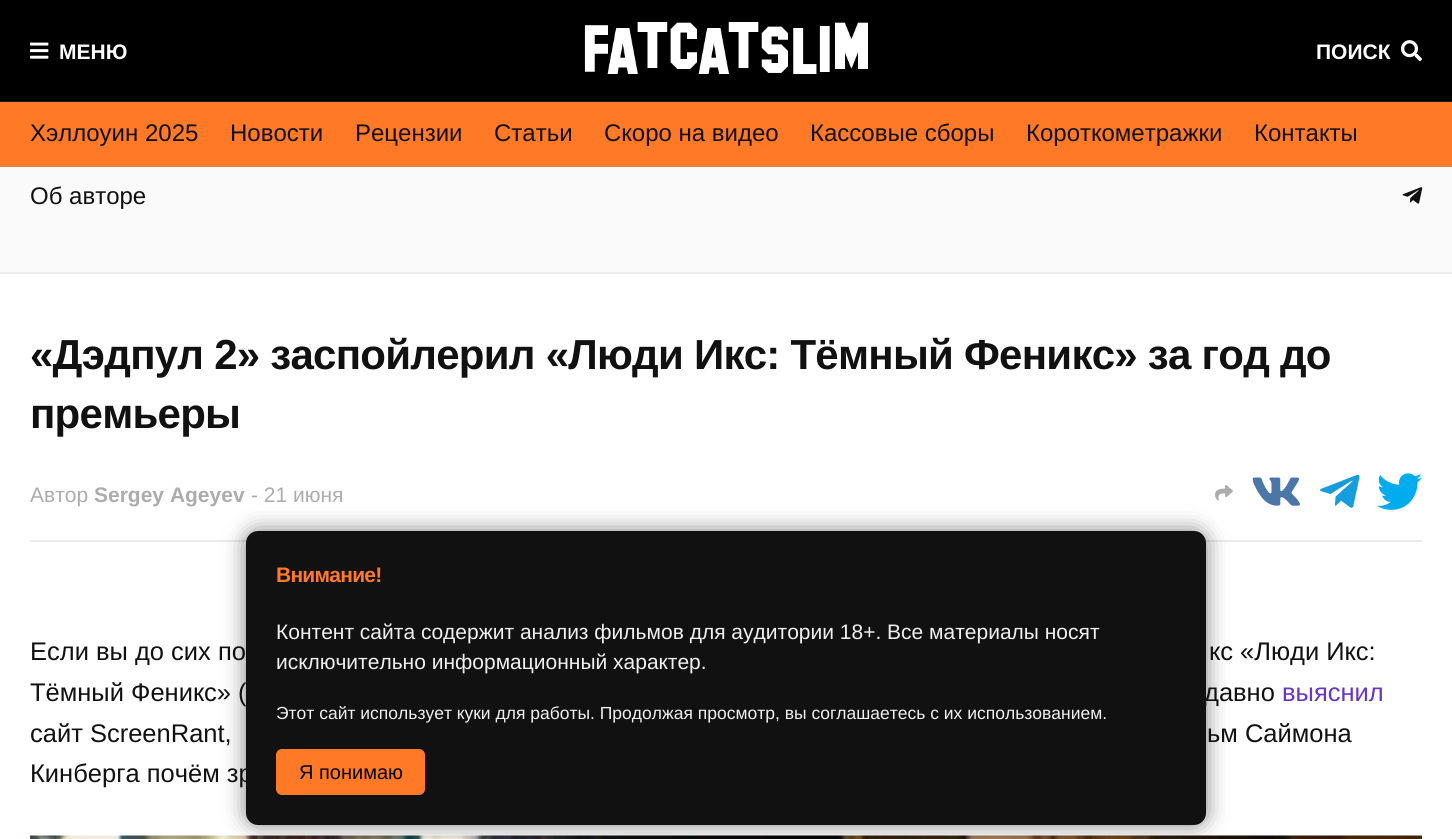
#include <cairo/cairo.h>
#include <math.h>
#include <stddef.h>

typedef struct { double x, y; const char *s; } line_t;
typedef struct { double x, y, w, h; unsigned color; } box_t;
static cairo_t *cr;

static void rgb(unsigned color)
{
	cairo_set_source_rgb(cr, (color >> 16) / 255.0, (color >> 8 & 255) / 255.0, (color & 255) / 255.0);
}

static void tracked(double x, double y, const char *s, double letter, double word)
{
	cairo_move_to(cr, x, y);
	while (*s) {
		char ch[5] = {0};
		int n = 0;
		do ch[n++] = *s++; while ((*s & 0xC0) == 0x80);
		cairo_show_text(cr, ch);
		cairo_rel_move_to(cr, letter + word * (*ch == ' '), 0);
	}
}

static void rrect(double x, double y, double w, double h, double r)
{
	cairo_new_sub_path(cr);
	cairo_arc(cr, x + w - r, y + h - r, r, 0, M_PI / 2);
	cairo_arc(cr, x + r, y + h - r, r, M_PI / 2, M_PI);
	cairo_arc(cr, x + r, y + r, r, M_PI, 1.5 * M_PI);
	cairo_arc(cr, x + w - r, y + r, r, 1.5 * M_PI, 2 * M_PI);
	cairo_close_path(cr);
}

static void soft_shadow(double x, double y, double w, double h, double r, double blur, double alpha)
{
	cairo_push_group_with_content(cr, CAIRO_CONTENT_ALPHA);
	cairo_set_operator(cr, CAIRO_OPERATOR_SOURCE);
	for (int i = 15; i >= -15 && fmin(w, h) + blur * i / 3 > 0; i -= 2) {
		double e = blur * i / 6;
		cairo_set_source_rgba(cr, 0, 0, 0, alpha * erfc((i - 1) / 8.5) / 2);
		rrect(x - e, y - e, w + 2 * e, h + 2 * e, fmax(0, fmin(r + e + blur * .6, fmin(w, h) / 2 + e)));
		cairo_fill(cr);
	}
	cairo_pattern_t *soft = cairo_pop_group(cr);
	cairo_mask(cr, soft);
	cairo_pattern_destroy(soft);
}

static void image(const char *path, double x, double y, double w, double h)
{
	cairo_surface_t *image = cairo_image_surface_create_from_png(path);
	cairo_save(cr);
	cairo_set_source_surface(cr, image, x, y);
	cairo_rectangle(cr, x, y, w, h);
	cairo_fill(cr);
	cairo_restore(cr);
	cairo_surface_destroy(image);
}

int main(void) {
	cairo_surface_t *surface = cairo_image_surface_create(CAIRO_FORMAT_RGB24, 1452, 839);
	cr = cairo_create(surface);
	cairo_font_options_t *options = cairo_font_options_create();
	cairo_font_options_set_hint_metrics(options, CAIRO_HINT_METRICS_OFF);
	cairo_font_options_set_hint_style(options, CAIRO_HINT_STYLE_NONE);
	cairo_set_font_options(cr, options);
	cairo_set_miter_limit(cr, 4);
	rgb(0xfafafa);
	cairo_paint(cr);
	rgb(0x000000);
	cairo_rectangle(cr, 0, 0, 1452, 101);
	cairo_fill(cr);
	rgb(0x1f1f1f);
	cairo_rectangle(cr, 0, 101, 1452, 1);
	cairo_fill(cr);
	image("img/1.png", 30, 42, 19, 17);
	image("img/2.png", 584, 22, 284, 52);
	image("img/3.png", 1401, 40, 21, 22);
	rgb(0xff7927);
	cairo_rectangle(cr, 0, 102, 1452, 63);
	cairo_fill(cr);
	rgb(0xeb803e);
	cairo_rectangle(cr, 0, 165, 1452, 2);
	cairo_fill(cr);
	image("img/4.png", 1402, 187, 21, 17);
	{
		static const box_t items[] = {
			{0, 274, 1452, 565, 0xffffff},
			{0, 272, 1452, 2, 0xebebeb},
			{30, 540, 1392, 2, 0xebebeb},
		};
		for (size_t i = 0; i < sizeof items / sizeof *items; i++) {
			rgb(items[i].color);
			cairo_rectangle(cr, items[i].x, items[i].y, items[i].w, items[i].h);
			cairo_fill(cr);
		}
	}
	image("img/5.png", 1215, 485, 18, 16);
	image("img/6.png", 1252, 477, 48, 29);
	image("img/7.png", 1320, 474, 40, 34);
	image("img/8.png", 1377, 473, 45, 37);
	image("img/9.png", 30, 835, 1392, 4);
	rgb(0x000000);
	soft_shadow(246, 531, 960, 294, 12, 11, 0.5);
	rgb(0x111111);
	rrect(246, 531, 960, 294, 12);
	cairo_fill(cr);
	rgb(0xff7927);
	rrect(276, 749, 149, 46, 6);
	cairo_fill(cr);
	cairo_select_font_face(cr, "Liberation Sans", CAIRO_FONT_SLANT_NORMAL, CAIRO_FONT_WEIGHT_BOLD);
	cairo_set_font_size(cr, 21);
	rgb(0xffffff);
	cairo_move_to(cr, 59, 59);
	cairo_show_text(cr, "МЕНЮ");
	cairo_move_to(cr, 1316, 59);
	cairo_show_text(cr, "ПОИСК");
	cairo_select_font_face(cr, "Liberation Sans", CAIRO_FONT_SLANT_NORMAL, CAIRO_FONT_WEIGHT_NORMAL);
	cairo_set_font_size(cr, 24);
	rgb(0x111111);
	{
		static const line_t items[] = {
			{30, 141, "Хэллоуин 2025"},
			{230, 141, "Новости"},
			{355, 141, "Рецензии"},
			{494, 141, "Статьи"},
			{604, 141, "Скоро на видео"},
			{810, 141, "Кассовые сборы"},
			{1026, 141, "Короткометражки"},
			{1254, 141, "Контакты"},
			{30, 204, "Об авторе"},
		};
		for (size_t i = 0; i < sizeof items / sizeof *items; i++) {
			cairo_move_to(cr, items[i].x, items[i].y);
			cairo_show_text(cr, items[i].s);
		}
	}
	cairo_select_font_face(cr, "Liberation Sans", CAIRO_FONT_SLANT_NORMAL, CAIRO_FONT_WEIGHT_BOLD);
	cairo_set_font_size(cr, 42);
	tracked(30, 369, "«Дэдпул 2» заспойлерил «Люди Икс: Тёмный Феникс» за год до", -0.75, 0);
	tracked(30, 428, "премьеры", -0.75, 0);
	cairo_select_font_face(cr, "Liberation Sans", CAIRO_FONT_SLANT_NORMAL, CAIRO_FONT_WEIGHT_NORMAL);
	cairo_set_font_size(cr, 21);
	rgb(0xacacac);
	cairo_move_to(cr, 30, 502);
	cairo_show_text(cr, "Автор");
	cairo_select_font_face(cr, "Liberation Sans", CAIRO_FONT_SLANT_NORMAL, CAIRO_FONT_WEIGHT_BOLD);
	cairo_move_to(cr, 94, 502);
	cairo_show_text(cr, "Sergey Ageyev");
	cairo_select_font_face(cr, "Liberation Sans", CAIRO_FONT_SLANT_NORMAL, CAIRO_FONT_WEIGHT_NORMAL);
	cairo_move_to(cr, 251, 502);
	cairo_show_text(cr, "- 21 июня");
	cairo_set_font_size(cr, 25.5);
	rgb(0x111111);
	{
		static const line_t items[] = {
			{30, 660, "Если вы до сих по"},
			{1209, 660, "кс «Люди Икс:"},
			{30, 701, "Тёмный Феникс» ("},
			{1204, 701, "давно"},
		};
		for (size_t i = 0; i < sizeof items / sizeof *items; i++) {
			cairo_move_to(cr, items[i].x, items[i].y);
			cairo_show_text(cr, items[i].s);
		}
	}
	rgb(0x6633cc);
	cairo_move_to(cr, 1282, 701);
	cairo_show_text(cr, "выяснил");
	rgb(0x111111);
	{
		static const line_t items[] = {
			{30, 742, "сайт ScreenRant,"},
			{1207, 742, "ьм Саймона"},
			{30, 782, "Кинберга почём зр"},
		};
		for (size_t i = 0; i < sizeof items / sizeof *items; i++) {
			cairo_move_to(cr, items[i].x, items[i].y);
			cairo_show_text(cr, items[i].s);
		}
	}
	cairo_select_font_face(cr, "Liberation Sans", CAIRO_FONT_SLANT_NORMAL, CAIRO_FONT_WEIGHT_BOLD);
	cairo_set_font_size(cr, 21);
	rgb(0xff7927);
	tracked(276, 582, "Внимание!", -0.75, 0);
	cairo_select_font_face(cr, "Liberation Sans", CAIRO_FONT_SLANT_NORMAL, CAIRO_FONT_WEIGHT_NORMAL);
	rgb(0xf0f0f0);
	cairo_move_to(cr, 276, 639);
	cairo_show_text(cr, "Контент сайта содержит анализ фильмов для аудитории 18+. Все материалы носят");
	cairo_move_to(cr, 276, 669);
	cairo_show_text(cr, "исключительно информационный характер.");
	cairo_set_font_size(cr, 17.5);
	cairo_move_to(cr, 276, 719);
	cairo_show_text(cr, "Этот сайт использует куки для работы. Продолжая просмотр, вы соглашаетесь с их использованием.");
	cairo_set_font_size(cr, 20);
	rgb(0x000000);
	cairo_move_to(cr, 299, 779);
	cairo_show_text(cr, "Я понимаю");
	cairo_surface_write_to_png(surface, "page.png");
	cairo_font_options_destroy(options);
	cairo_destroy(cr);
	cairo_surface_destroy(surface);
	return 0;
}
